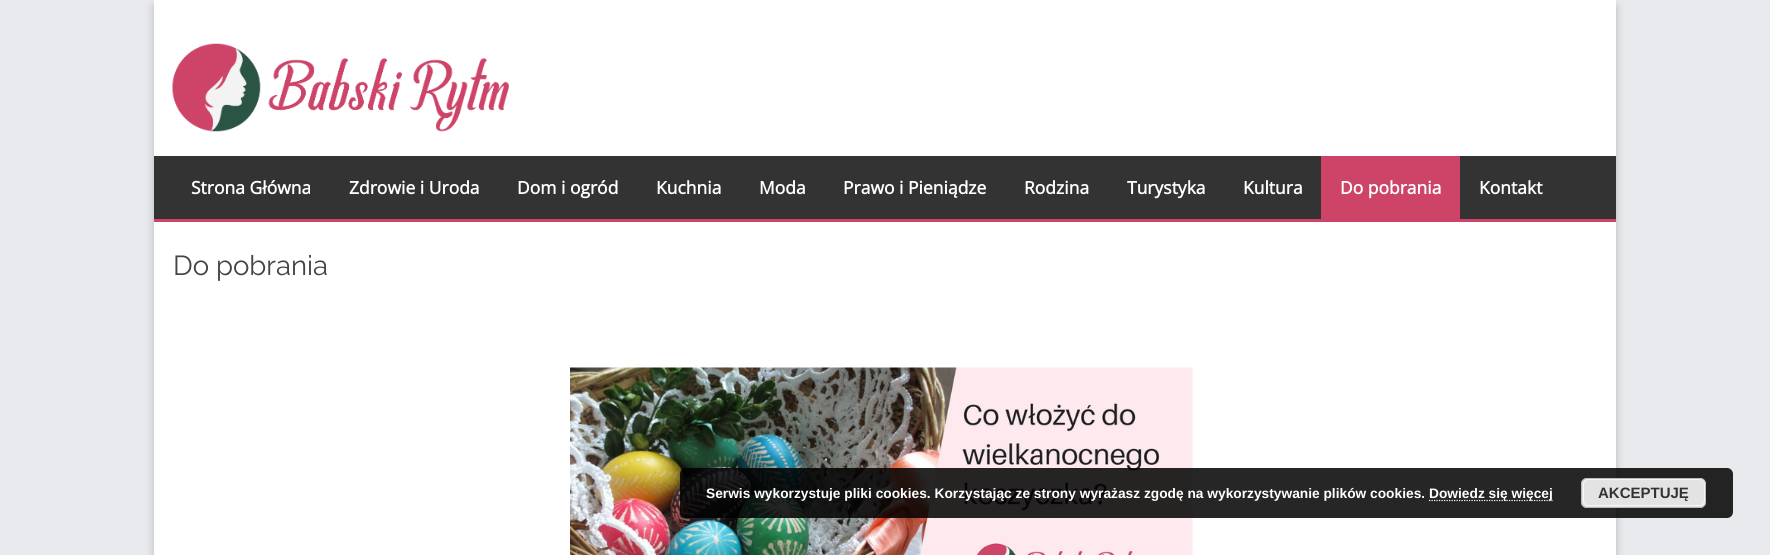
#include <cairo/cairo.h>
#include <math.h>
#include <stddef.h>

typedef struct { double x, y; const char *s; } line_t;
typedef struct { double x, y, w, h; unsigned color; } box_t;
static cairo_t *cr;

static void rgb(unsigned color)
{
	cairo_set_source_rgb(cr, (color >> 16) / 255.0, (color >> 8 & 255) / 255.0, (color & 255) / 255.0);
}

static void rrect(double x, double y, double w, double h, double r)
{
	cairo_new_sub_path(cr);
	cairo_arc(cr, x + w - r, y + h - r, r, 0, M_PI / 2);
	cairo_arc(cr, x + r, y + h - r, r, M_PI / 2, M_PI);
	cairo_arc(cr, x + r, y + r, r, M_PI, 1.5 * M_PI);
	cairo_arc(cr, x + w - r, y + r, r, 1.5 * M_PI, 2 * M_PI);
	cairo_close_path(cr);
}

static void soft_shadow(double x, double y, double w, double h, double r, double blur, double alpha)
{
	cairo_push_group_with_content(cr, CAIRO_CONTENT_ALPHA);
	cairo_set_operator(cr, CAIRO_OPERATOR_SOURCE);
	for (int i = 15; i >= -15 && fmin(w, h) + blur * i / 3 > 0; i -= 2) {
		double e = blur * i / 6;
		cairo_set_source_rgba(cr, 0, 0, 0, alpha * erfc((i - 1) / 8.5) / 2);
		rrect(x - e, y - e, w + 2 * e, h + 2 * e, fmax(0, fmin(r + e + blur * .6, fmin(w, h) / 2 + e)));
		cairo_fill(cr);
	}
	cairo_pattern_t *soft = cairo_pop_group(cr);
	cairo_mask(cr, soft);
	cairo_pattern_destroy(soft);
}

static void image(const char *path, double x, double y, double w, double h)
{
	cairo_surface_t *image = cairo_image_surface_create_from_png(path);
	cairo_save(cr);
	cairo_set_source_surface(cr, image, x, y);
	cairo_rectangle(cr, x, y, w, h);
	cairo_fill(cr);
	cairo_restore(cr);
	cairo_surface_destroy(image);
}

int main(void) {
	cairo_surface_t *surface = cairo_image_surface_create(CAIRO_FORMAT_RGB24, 1770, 555);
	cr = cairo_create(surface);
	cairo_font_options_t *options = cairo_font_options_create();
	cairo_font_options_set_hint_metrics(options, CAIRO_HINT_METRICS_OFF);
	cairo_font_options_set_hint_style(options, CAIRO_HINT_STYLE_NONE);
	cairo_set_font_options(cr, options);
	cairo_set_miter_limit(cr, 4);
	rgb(0xe9eaed);
	cairo_paint(cr);
	rgb(0x000000);
	soft_shadow(154, 6, 1462, 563, 0, 4.5, 0.22);
	rgb(0xffffff);
	cairo_rectangle(cr, 154, 0, 1462, 555);
	cairo_fill(cr);
	image("img/1.png", 172, 43, 337, 89);
	{
		static const box_t items[] = {
			{154, 156, 1462, 63, 0x333333},
			{154, 219, 1462, 3, 0xcd4468},
			{1321, 156, 139, 63, 0xcd4468},
		};
		for (size_t i = 0; i < sizeof items / sizeof *items; i++) {
			rgb(items[i].color);
			cairo_rectangle(cr, items[i].x, items[i].y, items[i].w, items[i].h);
			cairo_fill(cr);
		}
	}
	image("img/2.png", 570, 367, 623, 188);
	cairo_set_source_rgba(cr, 0, 0, 0, 0.85);
	rrect(680, 468, 1053, 50, 6);
	cairo_fill(cr);
	cairo_new_path(cr);
	cairo_move_to(cr, 1429, 500.5);
	cairo_line_to(cr, 1552.5, 500.5);
	rgb(0xffffff);
	cairo_set_line_width(cr, 1.2);
	cairo_set_dash(cr, (double[]){1.25, 1.25}, 2, 0);
	cairo_stroke(cr);
	rgb(0xe3e3e3);
	rrect(1581, 478, 125, 30, 6);
	cairo_fill(cr);
	rrect(1583.5, 479.5, 121, 26, 4.5);
	rgb(0xf6f6f6);
	cairo_set_line_width(cr, 1);
	cairo_set_dash(cr, NULL, 0, 0);
	cairo_stroke(cr);
	rrect(1581.5, 478.5, 124, 29, 5.5);
	rgb(0xbbbbbb);
	cairo_stroke(cr);
	cairo_select_font_face(cr, "Open Sans", CAIRO_FONT_SLANT_NORMAL, CAIRO_FONT_WEIGHT_BOLD);
	cairo_set_font_size(cr, 17.5);
	rgb(0xffffff);
	{
		static const line_t items[] = {
			{191, 194, "Strona Główna"},
			{349, 194, "Zdrowie i Uroda"},
			{517, 194, "Dom i ogród"},
			{656, 194, "Kuchnia"},
			{759, 194, "Moda"},
			{843, 194, "Prawo i Pieniądze"},
			{1024, 194, "Rodzina"},
			{1127, 194, "Turystyka"},
			{1243, 194, "Kultura"},
			{1340, 194, "Do pobrania"},
			{1479, 194, "Kontakt"},
		};
		for (size_t i = 0; i < sizeof items / sizeof *items; i++) {
			cairo_move_to(cr, items[i].x, items[i].y);
			cairo_show_text(cr, items[i].s);
		}
	}
	cairo_select_font_face(cr, "Raleway Thin", CAIRO_FONT_SLANT_NORMAL, CAIRO_FONT_WEIGHT_NORMAL);
	cairo_set_font_size(cr, 27.5);
	rgb(0x444444);
	cairo_move_to(cr, 173, 275);
	cairo_show_text(cr, "Do pobrania");
	cairo_select_font_face(cr, "Liberation Sans", CAIRO_FONT_SLANT_NORMAL, CAIRO_FONT_WEIGHT_BOLD);
	cairo_set_font_size(cr, 13.75);
	rgb(0xffffff);
	cairo_move_to(cr, 706, 498);
	cairo_show_text(cr, "Serwis wykorzystuje pliki cookies. Korzystając ze strony wyrażasz zgodę na wykorzystywanie plików cookies.");
	cairo_move_to(cr, 1429, 498);
	cairo_show_text(cr, "Dowiedz się więcej");
	cairo_set_font_size(cr, 15);
	rgb(0x333333);
	cairo_move_to(cr, 1598, 498);
	cairo_show_text(cr, "AKCEPTUJĘ");
	cairo_surface_write_to_png(surface, "page.png");
	cairo_font_options_destroy(options);
	cairo_destroy(cr);
	cairo_surface_destroy(surface);
	return 0;
}
